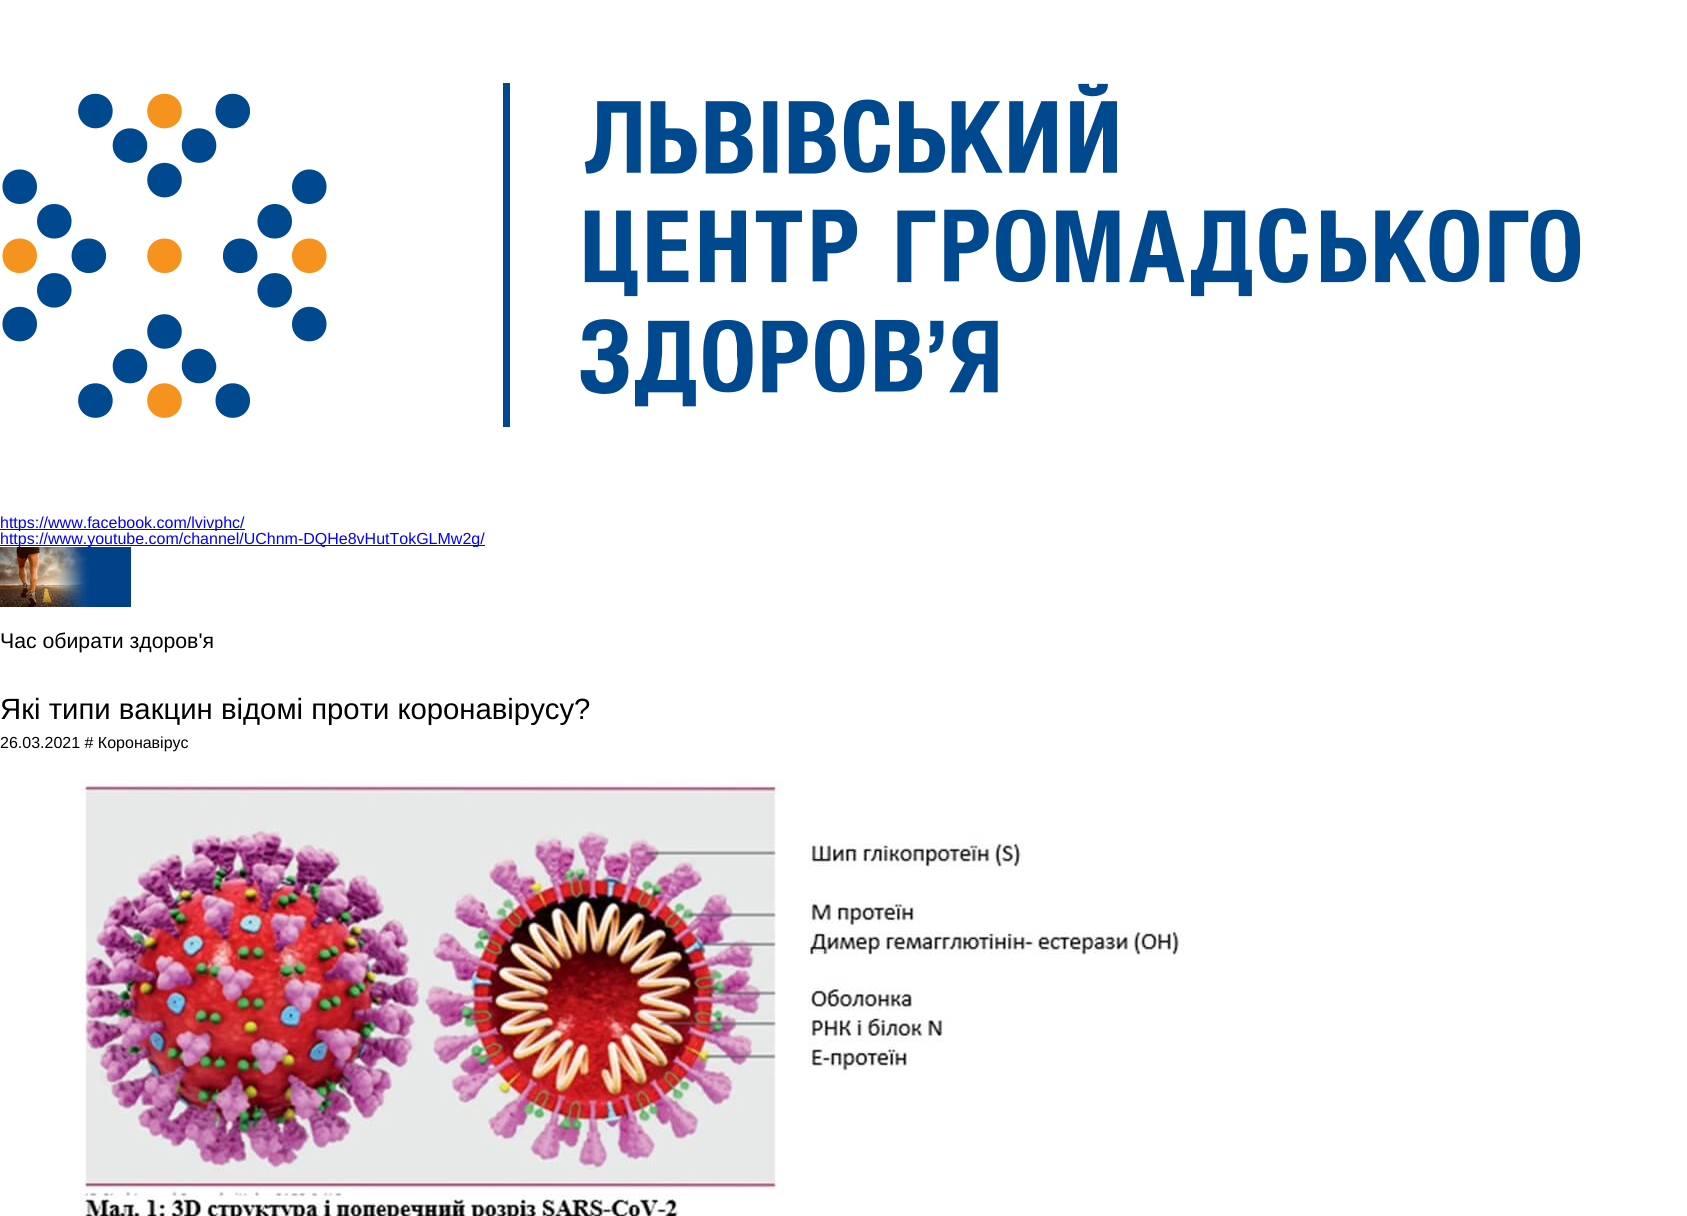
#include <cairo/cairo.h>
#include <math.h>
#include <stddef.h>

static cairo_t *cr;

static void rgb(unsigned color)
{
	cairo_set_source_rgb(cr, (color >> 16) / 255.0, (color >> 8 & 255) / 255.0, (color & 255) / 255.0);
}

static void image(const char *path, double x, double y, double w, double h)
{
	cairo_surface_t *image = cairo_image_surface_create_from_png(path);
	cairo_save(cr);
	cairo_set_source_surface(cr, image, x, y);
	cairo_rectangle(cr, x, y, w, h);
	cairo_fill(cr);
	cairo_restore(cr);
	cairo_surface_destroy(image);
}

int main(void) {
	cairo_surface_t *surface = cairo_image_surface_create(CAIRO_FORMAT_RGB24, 1687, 1216);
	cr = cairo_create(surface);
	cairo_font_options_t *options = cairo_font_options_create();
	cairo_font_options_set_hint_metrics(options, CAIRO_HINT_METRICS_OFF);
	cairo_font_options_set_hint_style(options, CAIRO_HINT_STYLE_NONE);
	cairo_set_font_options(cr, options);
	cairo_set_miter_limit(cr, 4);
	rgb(0xffffff);
	cairo_paint(cr);
	image("img/1.png", 2, 83, 1579, 344);
	rgb(0x0000ff);
	cairo_rectangle(cr, 0, 529, 245, 1);
	cairo_fill(cr);
	cairo_rectangle(cr, 0, 545, 485, 1);
	cairo_fill(cr);
	image("img/2.png", 0, 547, 131, 60);
	image("img/3.png", 79, 779, 1105, 437);
	cairo_save(cr);
	cairo_rectangle(cr, 0, 515, 1687, 16);
	cairo_clip(cr);
	cairo_select_font_face(cr, "Liberation Sans", CAIRO_FONT_SLANT_NORMAL, CAIRO_FONT_WEIGHT_NORMAL);
	cairo_set_font_size(cr, 16);
	cairo_move_to(cr, 0, 528);
	cairo_show_text(cr, "https://www.facebook.com/lvivphc/");
	cairo_restore(cr);
	cairo_save(cr);
	cairo_rectangle(cr, 0, 531, 1687, 16);
	cairo_clip(cr);
	cairo_select_font_face(cr, "Liberation Sans", CAIRO_FONT_SLANT_NORMAL, CAIRO_FONT_WEIGHT_NORMAL);
	cairo_set_font_size(cr, 16);
	cairo_move_to(cr, 0, 544);
	cairo_show_text(cr, "https://www.youtube.com/channel/UChnm-DQHe8vHutTokGLMw2g/");
	cairo_restore(cr);
	cairo_select_font_face(cr, "Liberation Sans", CAIRO_FONT_SLANT_NORMAL, CAIRO_FONT_WEIGHT_NORMAL);
	cairo_set_font_size(cr, 21.25);
	rgb(0x000000);
	cairo_move_to(cr, 0, 648);
	cairo_show_text(cr, "Час обирати здоров'я");
	cairo_set_font_size(cr, 29.3);
	cairo_move_to(cr, 0, 719);
	cairo_show_text(cr, "Які типи вакцин відомі проти коронавірусу?");
	cairo_set_font_size(cr, 16);
	cairo_move_to(cr, 0, 748);
	cairo_show_text(cr, "26.03.2021 # Коронавірус");
	cairo_surface_write_to_png(surface, "page.png");
	cairo_font_options_destroy(options);
	cairo_destroy(cr);
	cairo_surface_destroy(surface);
	return 0;
}
